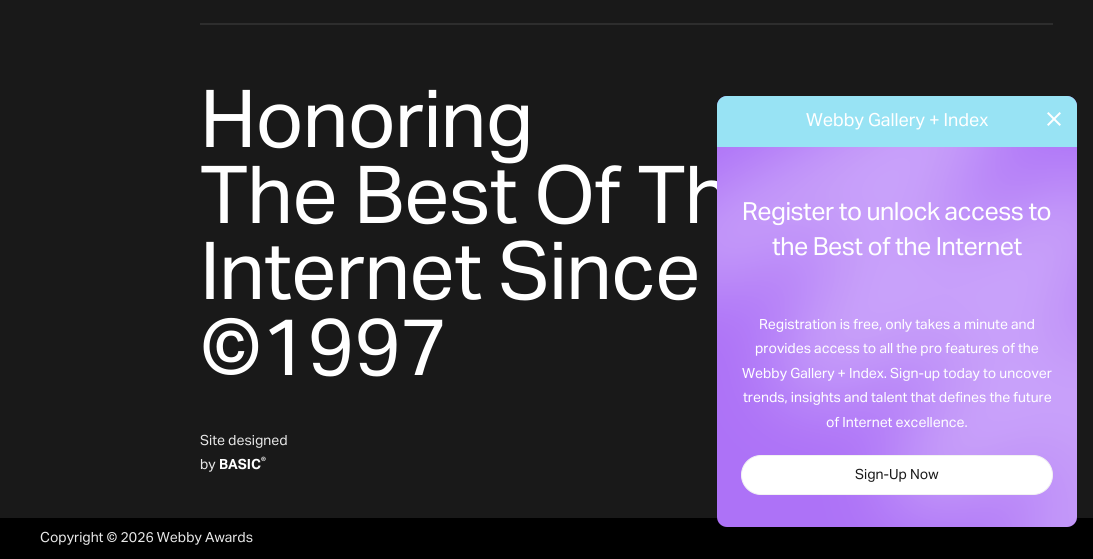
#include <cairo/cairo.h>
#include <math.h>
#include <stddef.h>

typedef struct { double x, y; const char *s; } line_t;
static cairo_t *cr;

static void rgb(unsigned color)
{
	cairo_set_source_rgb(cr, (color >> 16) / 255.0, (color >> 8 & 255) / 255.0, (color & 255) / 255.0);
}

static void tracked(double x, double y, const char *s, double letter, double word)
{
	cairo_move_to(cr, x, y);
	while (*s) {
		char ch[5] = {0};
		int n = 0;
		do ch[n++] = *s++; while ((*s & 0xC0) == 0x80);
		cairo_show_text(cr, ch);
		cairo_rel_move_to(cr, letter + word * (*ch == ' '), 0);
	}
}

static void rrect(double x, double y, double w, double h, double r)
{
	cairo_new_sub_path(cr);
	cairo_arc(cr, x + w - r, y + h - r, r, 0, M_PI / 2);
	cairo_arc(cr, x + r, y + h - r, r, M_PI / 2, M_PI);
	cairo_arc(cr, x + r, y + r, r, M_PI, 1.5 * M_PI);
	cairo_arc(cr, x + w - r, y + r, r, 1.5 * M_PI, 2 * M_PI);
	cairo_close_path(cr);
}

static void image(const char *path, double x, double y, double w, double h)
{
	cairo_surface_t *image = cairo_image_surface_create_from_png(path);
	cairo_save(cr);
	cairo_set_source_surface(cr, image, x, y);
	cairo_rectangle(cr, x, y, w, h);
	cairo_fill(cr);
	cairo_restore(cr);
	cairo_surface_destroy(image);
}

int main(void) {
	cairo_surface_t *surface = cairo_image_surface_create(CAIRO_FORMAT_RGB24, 1093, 559);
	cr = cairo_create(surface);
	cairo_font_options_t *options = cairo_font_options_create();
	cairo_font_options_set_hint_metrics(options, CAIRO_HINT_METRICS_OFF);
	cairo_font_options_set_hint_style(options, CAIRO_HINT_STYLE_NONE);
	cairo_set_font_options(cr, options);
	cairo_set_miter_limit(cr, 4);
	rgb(0x191919);
	cairo_paint(cr);
	rgb(0x2d2d2d);
	cairo_rectangle(cr, 200, 23, 853, 2);
	cairo_fill(cr);
	rgb(0x000000);
	cairo_rectangle(cr, 0, 518, 1093, 41);
	cairo_fill(cr);
	cairo_select_font_face(cr, "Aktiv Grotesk", CAIRO_FONT_SLANT_NORMAL, CAIRO_FONT_WEIGHT_NORMAL);
	cairo_set_font_size(cr, 80);
	rgb(0xffffff);
	{
		static const line_t items[] = {
			{200, 147, "Honoring"},
			{200, 223, "The Best Of Th"},
			{200, 299, "Internet Since"},
			{200, 375, "©1997"},
		};
		for (size_t i = 0; i < sizeof items / sizeof *items; i++) {
			tracked(items[i].x, items[i].y, items[i].s, -0.75, 0);
		}
	}
	cairo_set_font_size(cr, 14);
	rgb(0xe8e8e8);
	cairo_move_to(cr, 200, 445);
	cairo_show_text(cr, "Site designed");
	cairo_move_to(cr, 200, 469);
	cairo_show_text(cr, "by");
	cairo_select_font_face(cr, "Aktiv Grotesk", CAIRO_FONT_SLANT_NORMAL, CAIRO_FONT_WEIGHT_BOLD);
	rgb(0xffffff);
	cairo_move_to(cr, 219, 469);
	cairo_show_text(cr, "BASIC");
	cairo_set_font_size(cr, 10);
	cairo_move_to(cr, 261, 464);
	cairo_show_text(cr, "®");
	cairo_select_font_face(cr, "Aktiv Grotesk", CAIRO_FONT_SLANT_NORMAL, CAIRO_FONT_WEIGHT_NORMAL);
	cairo_set_font_size(cr, 14);
	rgb(0xe8e8e8);
	cairo_move_to(cr, 40, 542);
	cairo_show_text(cr, "Copyright © 2026 Webby Awards");
	rgb(0xad72f7);
	rrect(717, 96, 360, 431, 10);
	cairo_fill(cr);
	image("img/1.png", 717, 147, 360, 380);
	rgb(0x98e3f4);
	cairo_new_path(cr);
	cairo_move_to(cr, 727, 96);
	cairo_line_to(cr, 1067, 96);
	cairo_curve_to(cr, 1072.5, 96, 1077, 100.5, 1077, 106);
	cairo_line_to(cr, 1077, 147);
	cairo_line_to(cr, 717, 147);
	cairo_line_to(cr, 717, 106);
	cairo_curve_to(cr, 717, 100.5, 721.5, 96, 727, 96);
	cairo_close_path(cr);
	cairo_fill(cr);
	cairo_set_font_size(cr, 18);
	rgb(0xffffff);
	cairo_move_to(cr, 806, 126);
	cairo_show_text(cr, "Webby Gallery + Index");
	image("img/2.png", 1047, 112, 14, 14);
	cairo_set_font_size(cr, 25);
	tracked(742, 220, "Register to unlock access to", -0.5, 0);
	tracked(772, 255, "the Best of the Internet", -0.5, 0);
	cairo_set_font_size(cr, 14);
	{
		static const line_t items[] = {
			{759, 329, "Registration is free, only takes a minute and"},
			{755, 353, "provides access to all the pro features of the"},
			{742, 378, "Webby Gallery + Index. Sign-up today to uncover"},
			{743, 402, "trends, insights and talent that defines the future"},
			{826, 427, "of Internet excellence."},
		};
		for (size_t i = 0; i < sizeof items / sizeof *items; i++) {
			cairo_move_to(cr, items[i].x, items[i].y);
			cairo_show_text(cr, items[i].s);
		}
	}
	rrect(741.5, 455.5, 311, 39, 19.5);
	cairo_fill_preserve(cr);
	rgb(0xf2f2f2);
	cairo_set_line_width(cr, 1);
	cairo_stroke(cr);
	rgb(0x191919);
	cairo_move_to(cr, 855, 479);
	cairo_show_text(cr, "Sign-Up Now");
	cairo_surface_write_to_png(surface, "page.png");
	cairo_font_options_destroy(options);
	cairo_destroy(cr);
	cairo_surface_destroy(surface);
	return 0;
}
